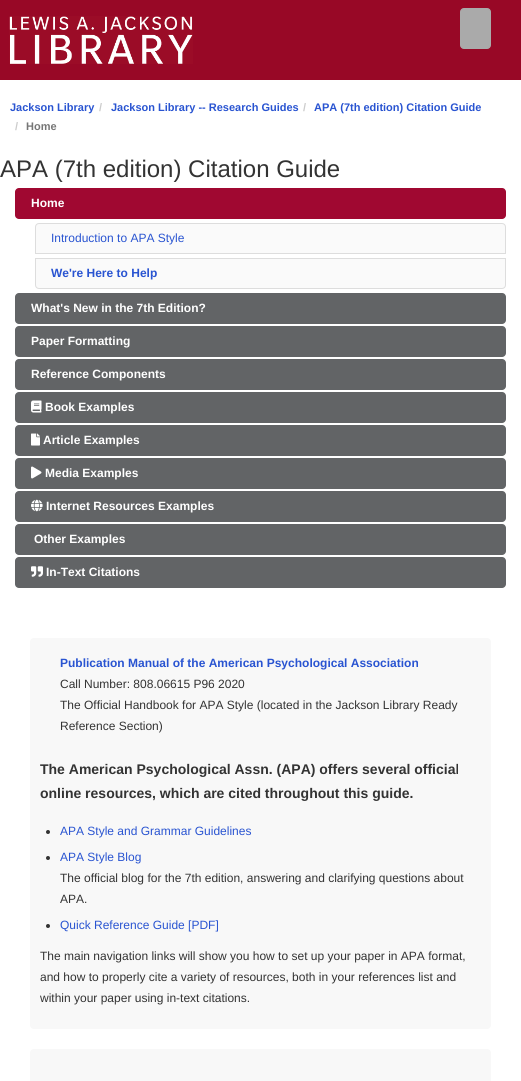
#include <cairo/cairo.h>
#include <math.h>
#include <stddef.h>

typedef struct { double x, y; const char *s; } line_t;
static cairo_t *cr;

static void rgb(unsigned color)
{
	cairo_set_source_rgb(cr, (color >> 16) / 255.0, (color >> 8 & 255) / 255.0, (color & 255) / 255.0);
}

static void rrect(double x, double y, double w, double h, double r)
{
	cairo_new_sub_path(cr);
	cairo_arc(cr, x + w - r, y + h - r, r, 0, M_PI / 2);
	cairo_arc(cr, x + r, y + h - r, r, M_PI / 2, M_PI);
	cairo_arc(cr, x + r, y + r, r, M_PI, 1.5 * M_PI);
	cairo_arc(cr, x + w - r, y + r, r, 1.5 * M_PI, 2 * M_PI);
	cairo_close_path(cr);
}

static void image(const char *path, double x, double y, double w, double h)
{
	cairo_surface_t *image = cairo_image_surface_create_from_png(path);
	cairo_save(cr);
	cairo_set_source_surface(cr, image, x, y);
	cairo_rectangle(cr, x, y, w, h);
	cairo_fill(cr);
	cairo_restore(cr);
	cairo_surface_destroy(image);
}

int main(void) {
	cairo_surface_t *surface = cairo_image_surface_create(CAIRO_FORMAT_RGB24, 521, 1081);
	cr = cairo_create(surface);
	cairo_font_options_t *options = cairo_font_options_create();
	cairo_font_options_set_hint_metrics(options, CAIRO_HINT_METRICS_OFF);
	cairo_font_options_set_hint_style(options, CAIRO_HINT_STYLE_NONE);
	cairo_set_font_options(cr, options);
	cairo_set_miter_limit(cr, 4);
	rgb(0xffffff);
	cairo_paint(cr);
	rgb(0x980826);
	cairo_rectangle(cr, 0, 0, 521, 80);
	cairo_fill(cr);
	image("img/1.png", 9, 16, 184, 48);
	rgb(0xaaaaaa);
	rrect(460.5, 8.5, 30, 40, 3.5);
	cairo_fill_preserve(cr);
	cairo_set_line_width(cr, 1);
	cairo_stroke(cr);
	rgb(0xa00831);
	rrect(15, 188, 491, 31, 4);
	cairo_fill(cr);
	rgb(0xfafafa);
	cairo_new_path(cr);
	cairo_move_to(cr, 39, 223.5);
	cairo_line_to(cr, 502, 223.5);
	cairo_curve_to(cr, 504, 223.5, 505.5, 225, 505.5, 227);
	cairo_line_to(cr, 505.5, 253.5);
	cairo_line_to(cr, 35.5, 253.5);
	cairo_line_to(cr, 35.5, 227);
	cairo_curve_to(cr, 35.5, 225, 37, 223.5, 39, 223.5);
	cairo_close_path(cr);
	cairo_fill_preserve(cr);
	rgb(0xdddddd);
	cairo_stroke(cr);
	rgb(0xfafafa);
	cairo_new_path(cr);
	cairo_move_to(cr, 35.5, 258.5);
	cairo_line_to(cr, 505.5, 258.5);
	cairo_line_to(cr, 505.5, 285);
	cairo_curve_to(cr, 505.5, 287, 504, 288.5, 502, 288.5);
	cairo_line_to(cr, 39, 288.5);
	cairo_curve_to(cr, 37, 288.5, 35.5, 287, 35.5, 285);
	cairo_close_path(cr);
	cairo_fill_preserve(cr);
	rgb(0xdddddd);
	cairo_stroke(cr);
	rgb(0x626466);
	rrect(15, 293, 491, 31, 4);
	cairo_fill(cr);
	rrect(15, 326, 491, 31, 4);
	cairo_fill(cr);
	rrect(15, 359, 491, 31, 4);
	cairo_fill(cr);
	rrect(15, 392, 491, 31, 4);
	cairo_fill(cr);
	image("img/2.png", 31, 400, 11, 13);
	rrect(15, 425, 491, 31, 4);
	cairo_fill(cr);
	image("img/3.png", 31, 433, 9, 13);
	rrect(15, 458, 491, 31, 4);
	cairo_fill(cr);
	image("img/4.png", 31, 466, 11, 13);
	rrect(15, 491, 491, 31, 4);
	cairo_fill(cr);
	image("img/5.png", 31, 499, 12, 13);
	rrect(15, 524, 491, 31, 4);
	cairo_fill(cr);
	rrect(15, 557, 491, 31, 4);
	cairo_fill(cr);
	image("img/6.png", 31, 566, 12, 11);
	rgb(0xf8f8f8);
	rrect(30, 638, 461, 391, 4);
	cairo_fill(cr);
	rgb(0x333333);
	cairo_arc(cr, 48, 832, 2, 0, 2 * M_PI);
	cairo_fill(cr);
	cairo_arc(cr, 48, 858, 2, 0, 2 * M_PI);
	cairo_fill(cr);
	cairo_arc(cr, 48, 926, 2, 0, 2 * M_PI);
	cairo_fill(cr);
	rgb(0xf8f8f8);
	rrect(30, 1049, 461, 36, 4);
	cairo_fill(cr);
	cairo_select_font_face(cr, "Liberation Sans", CAIRO_FONT_SLANT_NORMAL, CAIRO_FONT_WEIGHT_BOLD);
	cairo_set_font_size(cr, 11);
	rgb(0x2954d1);
	cairo_move_to(cr, 10, 111);
	cairo_show_text(cr, "Jackson Library");
	rgb(0xcccccc);
	cairo_move_to(cr, 99, 111);
	cairo_show_text(cr, "/");
	rgb(0x2954d1);
	cairo_move_to(cr, 111, 111);
	cairo_show_text(cr, "Jackson Library -- Research Guides");
	rgb(0xcccccc);
	cairo_move_to(cr, 303, 111);
	cairo_show_text(cr, "/");
	rgb(0x2954d1);
	cairo_move_to(cr, 314, 111);
	cairo_show_text(cr, "APA (7th edition) Citation Guide");
	rgb(0xcccccc);
	cairo_move_to(cr, 15, 130);
	cairo_show_text(cr, "/");
	rgb(0x767676);
	cairo_move_to(cr, 26, 130);
	cairo_show_text(cr, "Home");
	cairo_select_font_face(cr, "Liberation Sans", CAIRO_FONT_SLANT_NORMAL, CAIRO_FONT_WEIGHT_NORMAL);
	cairo_set_font_size(cr, 24);
	rgb(0x333333);
	cairo_move_to(cr, 0, 177);
	cairo_show_text(cr, "APA (7th edition) Citation Guide");
	cairo_select_font_face(cr, "Liberation Sans", CAIRO_FONT_SLANT_NORMAL, CAIRO_FONT_WEIGHT_BOLD);
	cairo_set_font_size(cr, 12);
	rgb(0xffffff);
	cairo_move_to(cr, 31, 207);
	cairo_show_text(cr, "Home");
	cairo_select_font_face(cr, "Liberation Sans", CAIRO_FONT_SLANT_NORMAL, CAIRO_FONT_WEIGHT_NORMAL);
	rgb(0x2954d1);
	cairo_move_to(cr, 51, 242);
	cairo_show_text(cr, "Introduction to APA Style");
	cairo_select_font_face(cr, "Liberation Sans", CAIRO_FONT_SLANT_NORMAL, CAIRO_FONT_WEIGHT_BOLD);
	cairo_move_to(cr, 51, 277);
	cairo_show_text(cr, "We're Here to Help");
	rgb(0xffffff);
	{
		static const line_t items[] = {
			{31, 312, "What's New in the 7th Edition?"},
			{31, 345, "Paper Formatting"},
			{31, 378, "Reference Components"},
			{45, 411, "Book Examples"},
			{43, 444, "Article Examples"},
			{45, 477, "Media Examples"},
			{46, 510, "Internet Resources Examples"},
			{34, 543, "Other Examples"},
			{46, 576, "In-Text Citations"},
		};
		for (size_t i = 0; i < sizeof items / sizeof *items; i++) {
			cairo_move_to(cr, items[i].x, items[i].y);
			cairo_show_text(cr, items[i].s);
		}
	}
	rgb(0x2954d1);
	cairo_move_to(cr, 60, 667);
	cairo_show_text(cr, "Publication Manual of the American Psychological Association");
	cairo_select_font_face(cr, "Liberation Sans", CAIRO_FONT_SLANT_NORMAL, CAIRO_FONT_WEIGHT_NORMAL);
	rgb(0x333333);
	{
		static const line_t items[] = {
			{60, 688, "Call Number: 808.06615 P96 2020"},
			{60, 709, "The Official Handbook for APA Style (located in the Jackson Library Ready"},
			{60, 730, "Reference Section)"},
		};
		for (size_t i = 0; i < sizeof items / sizeof *items; i++) {
			cairo_move_to(cr, items[i].x, items[i].y);
			cairo_show_text(cr, items[i].s);
		}
	}
	cairo_select_font_face(cr, "Liberation Sans", CAIRO_FONT_SLANT_NORMAL, CAIRO_FONT_WEIGHT_BOLD);
	cairo_set_font_size(cr, 14);
	cairo_move_to(cr, 40, 774);
	cairo_show_text(cr, "The American Psychological Assn. (APA) offers several official");
	cairo_move_to(cr, 40, 798);
	cairo_show_text(cr, "online resources, which are cited throughout this guide.");
	cairo_select_font_face(cr, "Liberation Sans", CAIRO_FONT_SLANT_NORMAL, CAIRO_FONT_WEIGHT_NORMAL);
	cairo_set_font_size(cr, 12);
	rgb(0x2954d1);
	cairo_move_to(cr, 60, 835);
	cairo_show_text(cr, "APA Style and Grammar Guidelines");
	cairo_move_to(cr, 60, 861);
	cairo_show_text(cr, "APA Style Blog");
	rgb(0x333333);
	cairo_move_to(cr, 60, 882);
	cairo_show_text(cr, "The official blog for the 7th edition, answering and clarifying questions about");
	cairo_move_to(cr, 60, 903);
	cairo_show_text(cr, "APA.");
	rgb(0x2954d1);
	cairo_move_to(cr, 60, 929);
	cairo_show_text(cr, "Quick Reference Guide [PDF]");
	rgb(0x333333);
	{
		static const line_t items[] = {
			{40, 960, "The main navigation links will show you how to set up your paper in APA format,"},
			{40, 981, "and how to properly cite a variety of resources, both in your references list and"},
			{40, 1002, "within your paper using in-text citations."},
		};
		for (size_t i = 0; i < sizeof items / sizeof *items; i++) {
			cairo_move_to(cr, items[i].x, items[i].y);
			cairo_show_text(cr, items[i].s);
		}
	}
	cairo_surface_write_to_png(surface, "page.png");
	cairo_font_options_destroy(options);
	cairo_destroy(cr);
	cairo_surface_destroy(surface);
	return 0;
}
